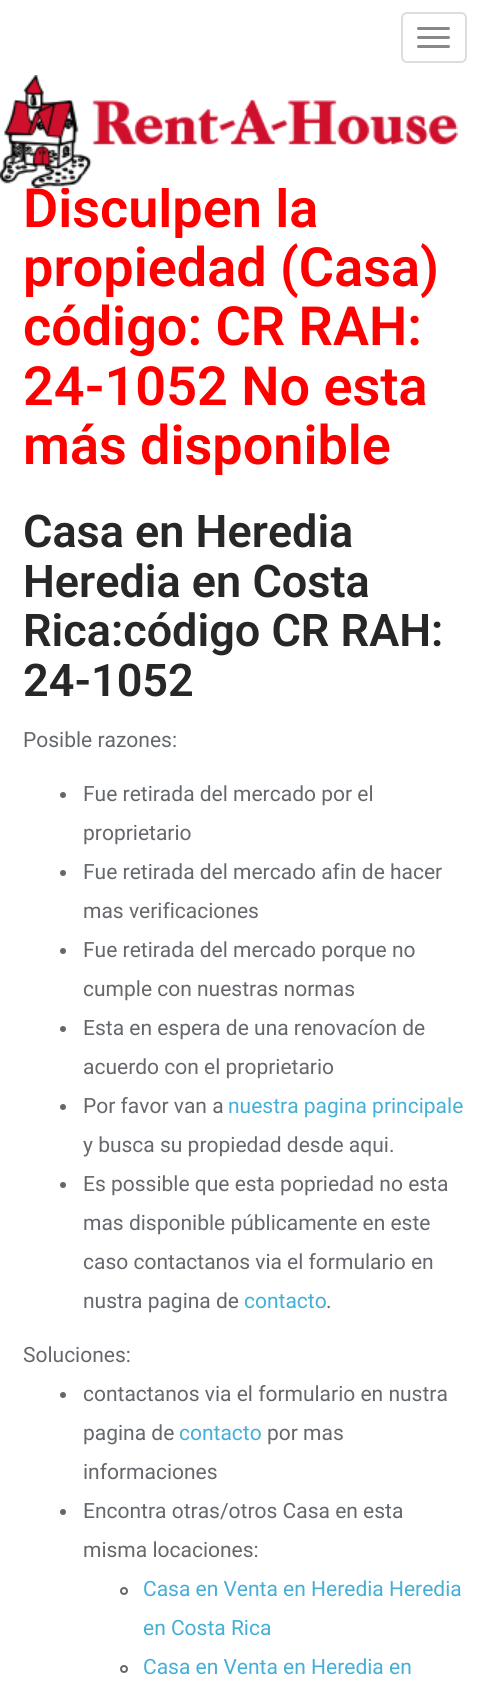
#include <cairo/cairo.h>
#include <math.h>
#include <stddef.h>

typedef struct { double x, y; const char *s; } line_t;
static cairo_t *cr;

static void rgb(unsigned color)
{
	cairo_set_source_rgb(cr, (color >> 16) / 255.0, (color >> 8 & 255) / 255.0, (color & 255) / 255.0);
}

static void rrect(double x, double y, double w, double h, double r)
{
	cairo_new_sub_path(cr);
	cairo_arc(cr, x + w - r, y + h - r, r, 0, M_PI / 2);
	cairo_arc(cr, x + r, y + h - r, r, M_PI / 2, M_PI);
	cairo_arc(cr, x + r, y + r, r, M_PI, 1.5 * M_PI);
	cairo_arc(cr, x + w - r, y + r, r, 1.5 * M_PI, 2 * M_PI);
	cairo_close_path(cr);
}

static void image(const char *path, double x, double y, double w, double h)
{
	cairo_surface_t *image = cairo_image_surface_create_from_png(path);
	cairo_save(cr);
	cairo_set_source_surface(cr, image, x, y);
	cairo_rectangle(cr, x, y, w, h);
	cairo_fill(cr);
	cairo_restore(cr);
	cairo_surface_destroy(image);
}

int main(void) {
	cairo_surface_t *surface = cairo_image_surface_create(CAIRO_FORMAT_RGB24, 489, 1689);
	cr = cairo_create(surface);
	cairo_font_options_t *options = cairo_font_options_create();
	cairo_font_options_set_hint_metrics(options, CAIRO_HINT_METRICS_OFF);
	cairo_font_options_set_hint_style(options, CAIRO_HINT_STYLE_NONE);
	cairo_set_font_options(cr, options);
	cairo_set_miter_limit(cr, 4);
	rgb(0xffffff);
	cairo_paint(cr);
	rrect(402, 13, 64, 49, 5);
	rgb(0xdddddd);
	cairo_stroke(cr);
	rgb(0x888888);
	rrect(417, 27, 33, 3, 1.5);
	cairo_fill(cr);
	rrect(417, 36, 33, 3, 1.5);
	cairo_fill(cr);
	rrect(417, 45, 33, 3, 1.5);
	cairo_fill(cr);
	rgb(0x64686d);
	cairo_arc(cr, 63, 795, 3, 0, 2 * M_PI);
	cairo_fill(cr);
	cairo_arc(cr, 63, 873, 3, 0, 2 * M_PI);
	cairo_fill(cr);
	cairo_arc(cr, 63, 951, 3, 0, 2 * M_PI);
	cairo_fill(cr);
	cairo_arc(cr, 63, 1029, 3, 0, 2 * M_PI);
	cairo_fill(cr);
	cairo_arc(cr, 63, 1107, 3, 0, 2 * M_PI);
	cairo_fill(cr);
	cairo_arc(cr, 63, 1185, 3, 0, 2 * M_PI);
	cairo_fill(cr);
	cairo_arc(cr, 63, 1395, 3, 0, 2 * M_PI);
	cairo_fill(cr);
	cairo_arc(cr, 63, 1512, 3, 0, 2 * M_PI);
	cairo_fill(cr);
	cairo_arc(cr, 124, 1591, 3, 0, 2 * M_PI);
	cairo_stroke(cr);
	cairo_arc(cr, 124, 1669, 3, 0, 2 * M_PI);
	cairo_stroke(cr);
	cairo_select_font_face(cr, "Roboto SemiBold", CAIRO_FONT_SLANT_NORMAL, CAIRO_FONT_WEIGHT_NORMAL);
	cairo_set_font_size(cr, 54);
	rgb(0xff0000);
	cairo_move_to(cr, 23, 227);
	cairo_show_text(cr, "Disculpen la");
	rgb(0xffffff);
	cairo_rectangle(cr, 62, 186, 224, 2);
	cairo_fill(cr);
	image("img/1.png", 0, 75, 458, 113);
	rgb(0xff0000);
	{
		static const line_t items[] = {
			{23, 286, "propiedad (Casa)"},
			{23, 345, "código: CR RAH:"},
			{23, 405, "24-1052 No esta"},
			{23, 464, "más disponible"},
		};
		for (size_t i = 0; i < sizeof items / sizeof *items; i++) {
			cairo_move_to(cr, items[i].x, items[i].y);
			cairo_show_text(cr, items[i].s);
		}
	}
	cairo_set_font_size(cr, 45);
	rgb(0x272727);
	{
		static const line_t items[] = {
			{23, 547, "Casa en Heredia"},
			{23, 597, "Heredia en Costa"},
			{23, 646, "Rica:código CR RAH:"},
			{23, 696, "24-1052"},
		};
		for (size_t i = 0; i < sizeof items / sizeof *items; i++) {
			cairo_move_to(cr, items[i].x, items[i].y);
			cairo_show_text(cr, items[i].s);
		}
	}
	cairo_select_font_face(cr, "Roboto", CAIRO_FONT_SLANT_NORMAL, CAIRO_FONT_WEIGHT_NORMAL);
	cairo_set_font_size(cr, 21);
	rgb(0x64686d);
	{
		static const line_t items[] = {
			{23, 747, "Posible razones:"},
			{83, 801, "Fue retirada del mercado por el"},
			{83, 840, "proprietario"},
			{83, 879, "Fue retirada del mercado afin de hacer"},
			{83, 918, "mas verificaciones"},
			{83, 957, "Fue retirada del mercado porque no"},
			{83, 996, "cumple con nuestras normas"},
			{83, 1035, "Esta en espera de una renovacíon de"},
			{83, 1074, "acuerdo con el proprietario"},
			{83, 1113, "Por favor van a"},
		};
		for (size_t i = 0; i < sizeof items / sizeof *items; i++) {
			cairo_move_to(cr, items[i].x, items[i].y);
			cairo_show_text(cr, items[i].s);
		}
	}
	rgb(0x45aed6);
	cairo_move_to(cr, 228, 1113);
	cairo_show_text(cr, "nuestra pagina principale");
	rgb(0x64686d);
	{
		static const line_t items[] = {
			{83, 1152, "y busca su propiedad desde aqui."},
			{83, 1191, "Es possible que esta popriedad no esta"},
			{83, 1230, "mas disponible públicamente en este"},
			{83, 1269, "caso contactanos via el formulario en"},
			{83, 1308, "nustra pagina de"},
		};
		for (size_t i = 0; i < sizeof items / sizeof *items; i++) {
			cairo_move_to(cr, items[i].x, items[i].y);
			cairo_show_text(cr, items[i].s);
		}
	}
	rgb(0x45aed6);
	cairo_move_to(cr, 244, 1308);
	cairo_show_text(cr, "contacto");
	rgb(0x64686d);
	{
		static const line_t items[] = {
			{326, 1308, "."},
			{23, 1362, "Soluciones:"},
			{83, 1401, "contactanos via el formulario en nustra"},
			{83, 1440, "pagina de"},
		};
		for (size_t i = 0; i < sizeof items / sizeof *items; i++) {
			cairo_move_to(cr, items[i].x, items[i].y);
			cairo_show_text(cr, items[i].s);
		}
	}
	rgb(0x45aed6);
	cairo_move_to(cr, 179, 1440);
	cairo_show_text(cr, "contacto");
	rgb(0x64686d);
	{
		static const line_t items[] = {
			{267, 1440, "por mas"},
			{83, 1479, "informaciones"},
			{83, 1518, "Encontra otras/otros Casa en esta"},
			{83, 1557, "misma locaciones:"},
		};
		for (size_t i = 0; i < sizeof items / sizeof *items; i++) {
			cairo_move_to(cr, items[i].x, items[i].y);
			cairo_show_text(cr, items[i].s);
		}
	}
	rgb(0x45aed6);
	{
		static const line_t items[] = {
			{143, 1596, "Casa en Venta en Heredia Heredia"},
			{143, 1635, "en Costa Rica"},
			{143, 1674, "Casa en Venta en Heredia en"},
		};
		for (size_t i = 0; i < sizeof items / sizeof *items; i++) {
			cairo_move_to(cr, items[i].x, items[i].y);
			cairo_show_text(cr, items[i].s);
		}
	}
	cairo_surface_write_to_png(surface, "page.png");
	cairo_font_options_destroy(options);
	cairo_destroy(cr);
	cairo_surface_destroy(surface);
	return 0;
}
